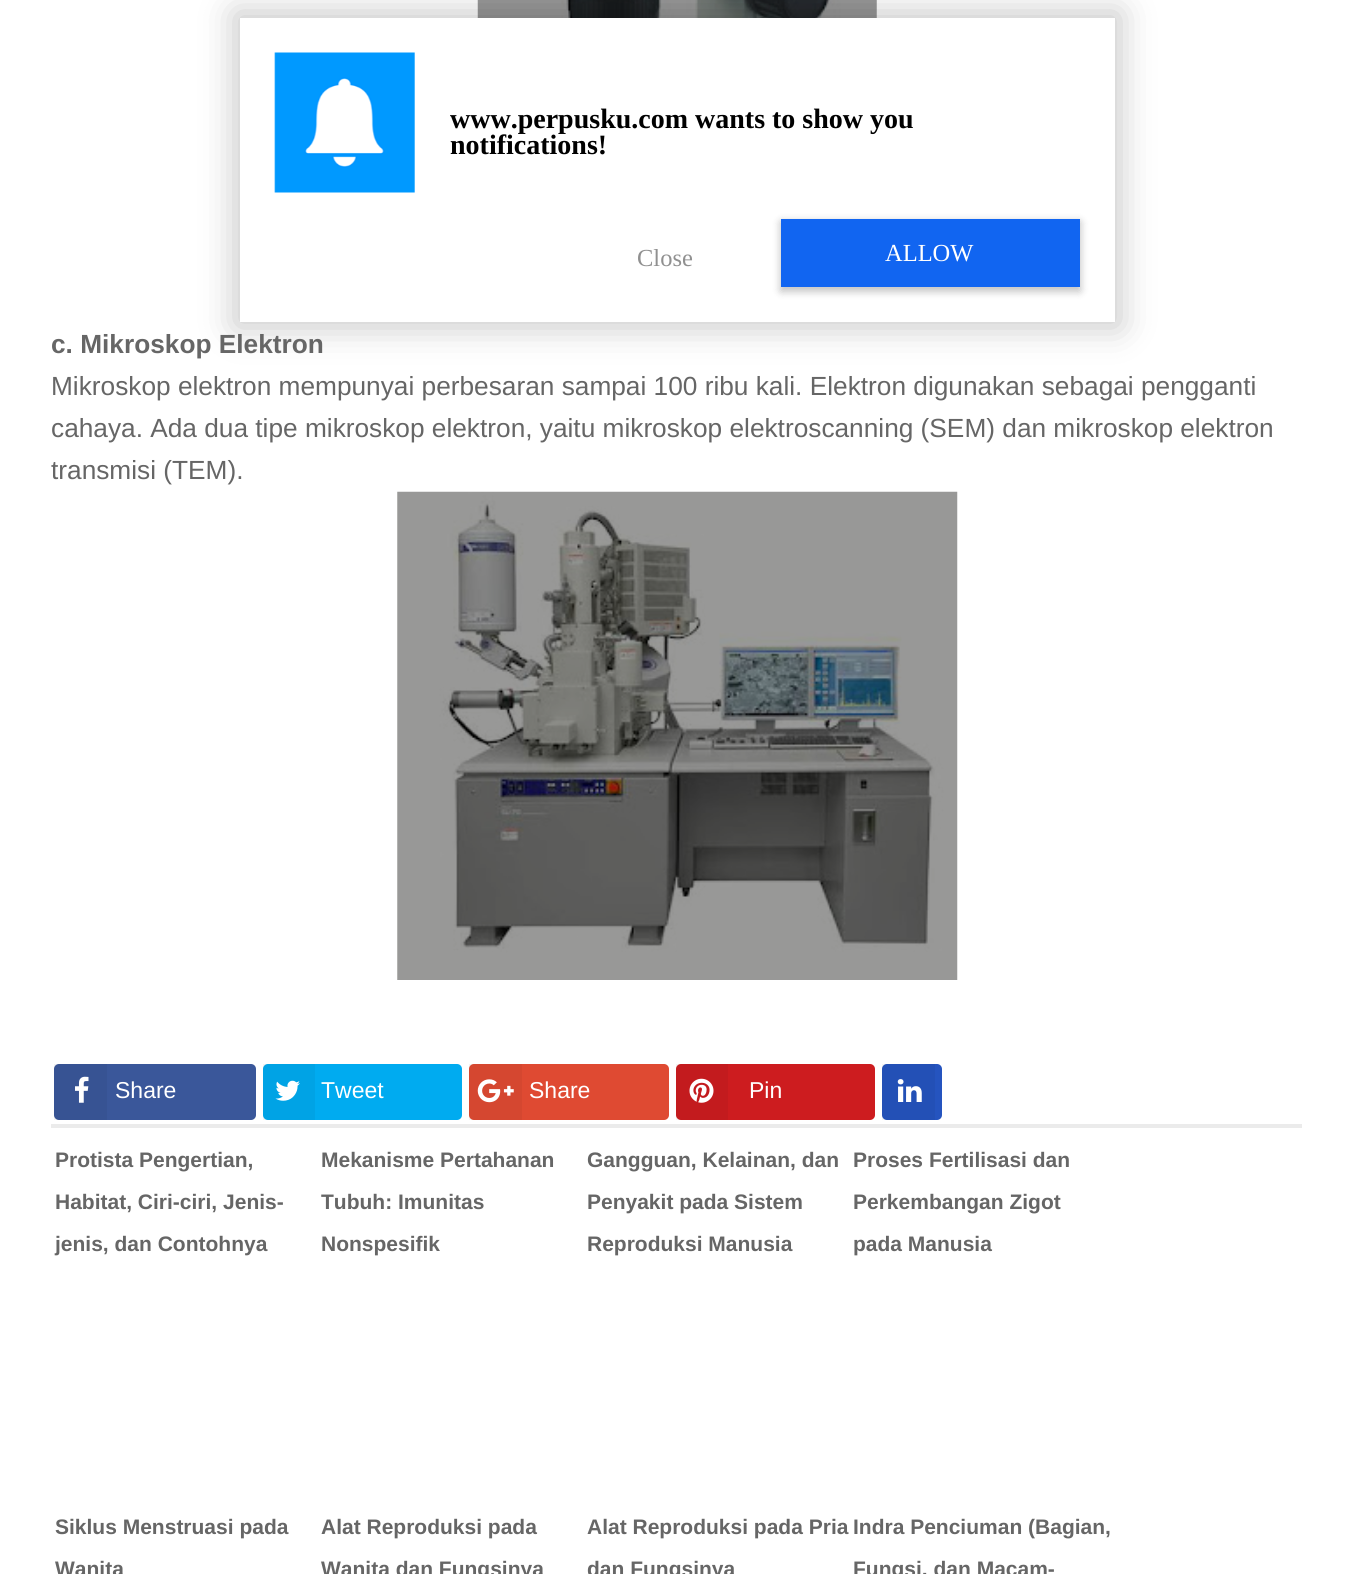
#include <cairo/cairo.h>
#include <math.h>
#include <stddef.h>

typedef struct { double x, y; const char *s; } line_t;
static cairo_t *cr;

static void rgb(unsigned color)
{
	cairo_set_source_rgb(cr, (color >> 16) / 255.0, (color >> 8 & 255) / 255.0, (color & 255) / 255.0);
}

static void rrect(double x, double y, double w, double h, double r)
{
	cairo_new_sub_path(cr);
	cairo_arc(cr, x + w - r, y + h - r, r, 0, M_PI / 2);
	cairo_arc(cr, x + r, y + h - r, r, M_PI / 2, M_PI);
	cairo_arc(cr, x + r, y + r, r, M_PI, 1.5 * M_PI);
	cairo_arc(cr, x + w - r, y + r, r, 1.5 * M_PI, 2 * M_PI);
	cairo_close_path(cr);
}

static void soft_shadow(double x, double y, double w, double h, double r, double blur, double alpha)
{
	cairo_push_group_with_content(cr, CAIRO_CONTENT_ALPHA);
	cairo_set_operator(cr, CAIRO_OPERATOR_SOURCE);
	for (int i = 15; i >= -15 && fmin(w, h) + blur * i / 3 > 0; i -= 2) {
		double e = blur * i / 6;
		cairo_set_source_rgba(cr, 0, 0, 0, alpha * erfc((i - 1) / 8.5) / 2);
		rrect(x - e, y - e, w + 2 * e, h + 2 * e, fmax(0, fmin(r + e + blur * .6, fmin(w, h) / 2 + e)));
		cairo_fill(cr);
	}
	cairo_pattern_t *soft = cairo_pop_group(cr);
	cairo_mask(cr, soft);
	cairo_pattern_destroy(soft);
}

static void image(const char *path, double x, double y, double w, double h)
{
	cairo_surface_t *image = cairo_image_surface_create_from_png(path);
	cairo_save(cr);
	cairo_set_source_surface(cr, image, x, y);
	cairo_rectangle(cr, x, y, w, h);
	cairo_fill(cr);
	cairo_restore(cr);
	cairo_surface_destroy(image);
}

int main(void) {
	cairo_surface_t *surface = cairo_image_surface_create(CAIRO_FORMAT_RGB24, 1352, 1574);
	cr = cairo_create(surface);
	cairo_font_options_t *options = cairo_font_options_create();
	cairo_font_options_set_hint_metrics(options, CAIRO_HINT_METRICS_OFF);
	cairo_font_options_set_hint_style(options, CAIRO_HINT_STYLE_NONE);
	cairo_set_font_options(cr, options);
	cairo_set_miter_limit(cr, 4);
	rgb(0xffffff);
	cairo_paint(cr);
	image("img/2.png", 477, 0, 400, 18);
	cairo_save(cr);
	cairo_set_fill_rule(cr, CAIRO_FILL_RULE_EVEN_ODD);
	cairo_new_path(cr);
	cairo_move_to(cr, 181, 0);
	cairo_line_to(cr, 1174, 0);
	cairo_line_to(cr, 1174, 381);
	cairo_line_to(cr, 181, 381);
	cairo_close_path(cr);
	cairo_move_to(cr, 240, 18);
	cairo_line_to(cr, 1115, 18);
	cairo_line_to(cr, 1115, 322);
	cairo_line_to(cr, 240, 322);
	cairo_close_path(cr);
	cairo_clip(cr);
	rgb(0x000000);
	soft_shadow(235, 12, 885, 315, 0, 17.5, 0.22);
	cairo_restore(cr);
	image("img/1.png", 274, 52, 141, 141);
	rgb(0x000000);
	soft_shadow(781, 222, 299, 69, 0, 5, 0.12);
	soft_shadow(781, 222, 299, 69, 0, 4.5, 0.16);
	rgb(0x1165f1);
	cairo_rectangle(cr, 781, 219, 299, 68);
	cairo_fill(cr);
	image("img/3.png", 397, 491, 561, 489);
	rgb(0xebebeb);
	cairo_rectangle(cr, 51, 1124, 1251, 4);
	cairo_fill(cr);
	rgb(0x3a579a);
	rrect(54, 1064, 202, 56, 5);
	cairo_fill(cr);
	cairo_set_source_rgba(cr, 0, 0, 0, 0.05);
	cairo_rectangle(cr, 54, 1064, 53, 56);
	cairo_fill(cr);
	image("img/4.png", 75, 1076, 14, 27);
	rgb(0x00abf0);
	rrect(263, 1064, 199, 56, 5);
	cairo_fill(cr);
	cairo_set_source_rgba(cr, 0, 0, 0, 0.05);
	cairo_rectangle(cr, 263, 1064, 52, 56);
	cairo_fill(cr);
	image("img/5.png", 275, 1080, 25, 21);
	rgb(0xdf4a32);
	rrect(469, 1064, 200, 56, 5);
	cairo_fill(cr);
	cairo_set_source_rgba(cr, 0, 0, 0, 0.05);
	cairo_rectangle(cr, 469, 1064, 53, 56);
	cairo_fill(cr);
	image("img/6.png", 477, 1079, 37, 24);
	rgb(0xcd1c1f);
	rrect(676, 1064, 199, 56, 5);
	cairo_fill(cr);
	cairo_set_source_rgba(cr, 0, 0, 0, 0.05);
	cairo_rectangle(cr, 676, 1064, 52, 56);
	cairo_fill(cr);
	image("img/7.png", 689, 1078, 25, 25);
	rgb(0x2554bf);
	rrect(882, 1064, 60, 56, 5);
	cairo_fill(cr);
	cairo_set_source_rgba(cr, 0, 0, 0, 0.05);
	cairo_rectangle(cr, 882, 1064, 53, 56);
	cairo_fill(cr);
	image("img/8.png", 897, 1079, 25, 23);
	cairo_select_font_face(cr, "Liberation Serif", CAIRO_FONT_SLANT_NORMAL, CAIRO_FONT_WEIGHT_BOLD);
	cairo_set_font_size(cr, 28);
	rgb(0x000000);
	cairo_move_to(cr, 450, 128);
	cairo_show_text(cr, "www.perpusku.com wants to show you");
	cairo_move_to(cr, 450, 154);
	cairo_show_text(cr, "notifications!");
	cairo_select_font_face(cr, "Liberation Serif", CAIRO_FONT_SLANT_NORMAL, CAIRO_FONT_WEIGHT_NORMAL);
	cairo_set_font_size(cr, 24.5);
	rgb(0x909090);
	cairo_move_to(cr, 637, 266);
	cairo_show_text(cr, "Close");
	rgb(0xffffff);
	cairo_move_to(cr, 885, 261);
	cairo_show_text(cr, "ALLOW");
	cairo_select_font_face(cr, "Liberation Sans", CAIRO_FONT_SLANT_NORMAL, CAIRO_FONT_WEIGHT_BOLD);
	cairo_set_font_size(cr, 26.25);
	rgb(0x666666);
	cairo_move_to(cr, 51, 353);
	cairo_show_text(cr, "c. Mikroskop Elektron");
	cairo_select_font_face(cr, "Liberation Sans", CAIRO_FONT_SLANT_NORMAL, CAIRO_FONT_WEIGHT_NORMAL);
	{
		static const line_t items[] = {
			{51, 395, "Mikroskop elektron mempunyai perbesaran sampai 100 ribu kali. Elektron digunakan sebagai pengganti"},
			{51, 437, "cahaya. Ada dua tipe mikroskop elektron, yaitu mikroskop elektroscanning (SEM) dan mikroskop elektron"},
			{51, 479, "transmisi (TEM)."},
		};
		for (size_t i = 0; i < sizeof items / sizeof *items; i++) {
			cairo_move_to(cr, items[i].x, items[i].y);
			cairo_show_text(cr, items[i].s);
		}
	}
	cairo_set_font_size(cr, 23);
	rgb(0xffffff);
	{
		static const line_t items[] = {
			{115, 1098, "Share"},
			{321, 1098, "Tweet"},
			{529, 1098, "Share"},
			{749, 1098, "Pin"},
		};
		for (size_t i = 0; i < sizeof items / sizeof *items; i++) {
			cairo_move_to(cr, items[i].x, items[i].y);
			cairo_show_text(cr, items[i].s);
		}
	}
	cairo_select_font_face(cr, "Liberation Sans", CAIRO_FONT_SLANT_NORMAL, CAIRO_FONT_WEIGHT_BOLD);
	cairo_set_font_size(cr, 21);
	rgb(0x666666);
	{
		static const line_t items[] = {
			{55, 1167, "Protista Pengertian,"},
			{55, 1209, "Habitat, Ciri-ciri, Jenis-"},
			{55, 1251, "jenis, dan Contohnya"},
			{321, 1167, "Mekanisme Pertahanan"},
			{321, 1209, "Tubuh: Imunitas"},
			{321, 1251, "Nonspesifik"},
			{587, 1167, "Gangguan, Kelainan, dan"},
			{587, 1209, "Penyakit pada Sistem"},
			{587, 1251, "Reproduksi Manusia"},
			{853, 1167, "Proses Fertilisasi dan"},
			{853, 1209, "Perkembangan Zigot"},
			{853, 1251, "pada Manusia"},
			{55, 1534, "Siklus Menstruasi pada"},
			{55, 1576, "Wanita"},
			{321, 1534, "Alat Reproduksi pada"},
			{321, 1576, "Wanita dan Fungsinya"},
			{587, 1534, "Alat Reproduksi pada Pria"},
			{587, 1576, "dan Fungsinya"},
			{853, 1534, "Indra Penciuman (Bagian,"},
			{853, 1576, "Fungsi, dan Macam-"},
		};
		for (size_t i = 0; i < sizeof items / sizeof *items; i++) {
			cairo_move_to(cr, items[i].x, items[i].y);
			cairo_show_text(cr, items[i].s);
		}
	}
	cairo_surface_write_to_png(surface, "page.png");
	cairo_font_options_destroy(options);
	cairo_destroy(cr);
	cairo_surface_destroy(surface);
	return 0;
}
